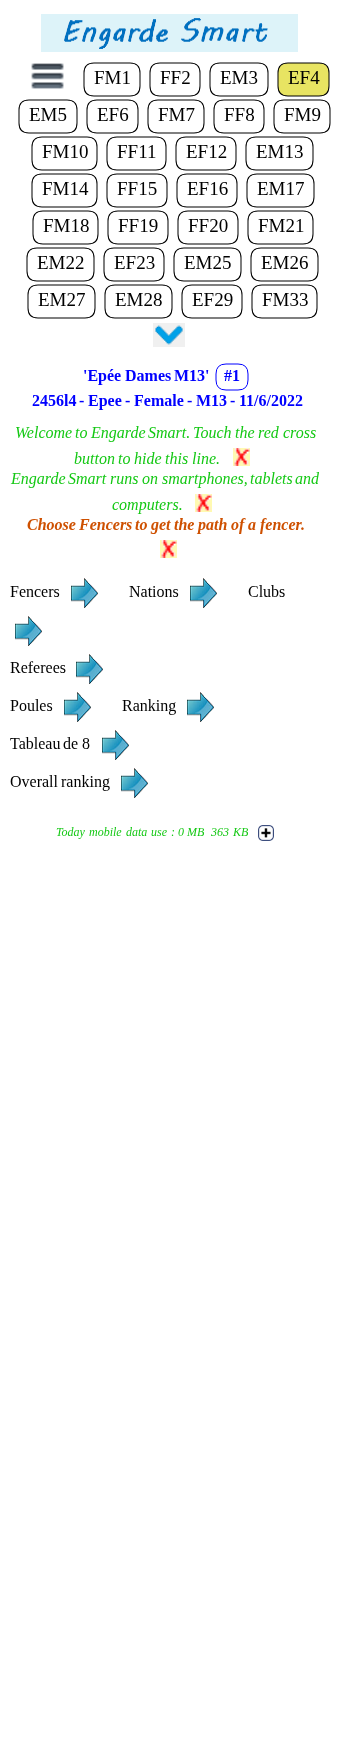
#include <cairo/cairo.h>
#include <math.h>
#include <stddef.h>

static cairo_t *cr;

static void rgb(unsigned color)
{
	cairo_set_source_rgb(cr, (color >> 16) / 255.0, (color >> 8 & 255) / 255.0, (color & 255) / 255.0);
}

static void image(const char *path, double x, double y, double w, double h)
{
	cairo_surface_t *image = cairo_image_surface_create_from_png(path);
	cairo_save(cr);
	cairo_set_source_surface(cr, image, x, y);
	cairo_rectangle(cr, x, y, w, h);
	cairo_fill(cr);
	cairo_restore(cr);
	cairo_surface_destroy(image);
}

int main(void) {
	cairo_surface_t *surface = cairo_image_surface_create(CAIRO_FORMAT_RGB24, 339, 1749);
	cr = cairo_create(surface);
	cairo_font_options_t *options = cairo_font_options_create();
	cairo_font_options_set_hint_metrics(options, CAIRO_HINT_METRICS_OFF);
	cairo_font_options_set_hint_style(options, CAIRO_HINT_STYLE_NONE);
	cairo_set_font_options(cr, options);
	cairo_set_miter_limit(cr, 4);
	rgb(0xffffff);
	cairo_paint(cr);
	image("img/1.png", 10, 14, 321, 827);
	cairo_surface_write_to_png(surface, "page.png");
	cairo_font_options_destroy(options);
	cairo_destroy(cr);
	cairo_surface_destroy(surface);
	return 0;
}
